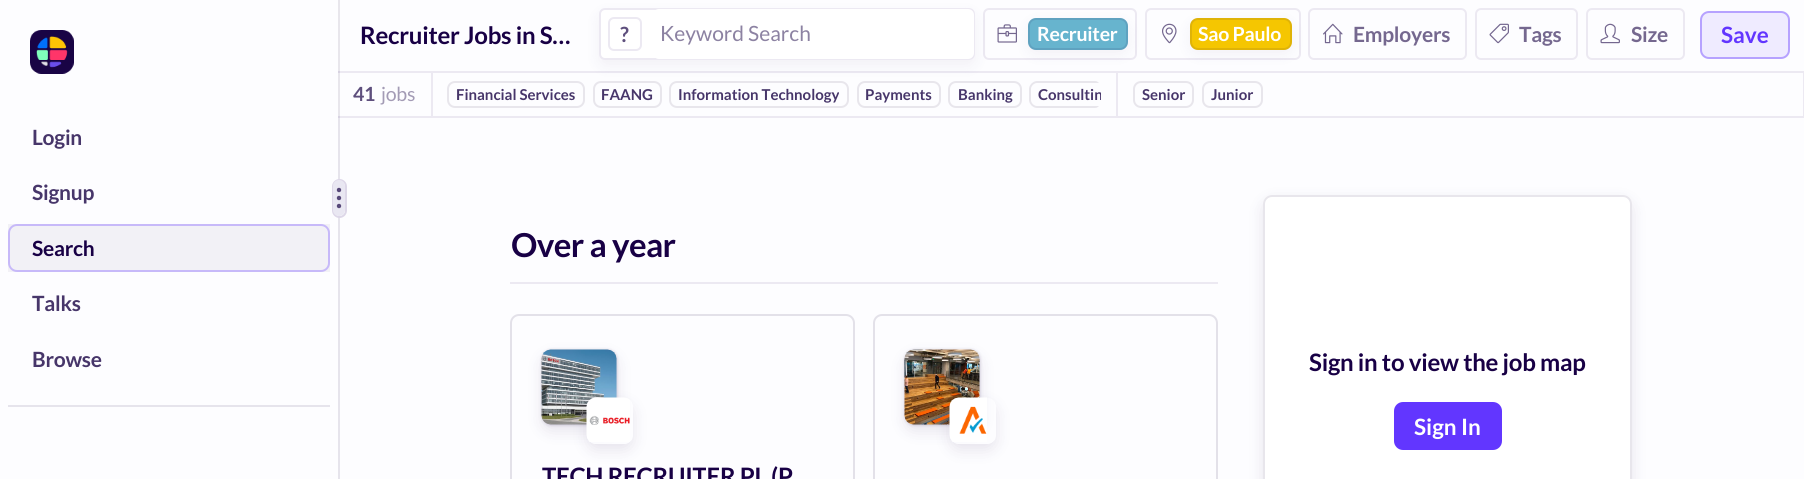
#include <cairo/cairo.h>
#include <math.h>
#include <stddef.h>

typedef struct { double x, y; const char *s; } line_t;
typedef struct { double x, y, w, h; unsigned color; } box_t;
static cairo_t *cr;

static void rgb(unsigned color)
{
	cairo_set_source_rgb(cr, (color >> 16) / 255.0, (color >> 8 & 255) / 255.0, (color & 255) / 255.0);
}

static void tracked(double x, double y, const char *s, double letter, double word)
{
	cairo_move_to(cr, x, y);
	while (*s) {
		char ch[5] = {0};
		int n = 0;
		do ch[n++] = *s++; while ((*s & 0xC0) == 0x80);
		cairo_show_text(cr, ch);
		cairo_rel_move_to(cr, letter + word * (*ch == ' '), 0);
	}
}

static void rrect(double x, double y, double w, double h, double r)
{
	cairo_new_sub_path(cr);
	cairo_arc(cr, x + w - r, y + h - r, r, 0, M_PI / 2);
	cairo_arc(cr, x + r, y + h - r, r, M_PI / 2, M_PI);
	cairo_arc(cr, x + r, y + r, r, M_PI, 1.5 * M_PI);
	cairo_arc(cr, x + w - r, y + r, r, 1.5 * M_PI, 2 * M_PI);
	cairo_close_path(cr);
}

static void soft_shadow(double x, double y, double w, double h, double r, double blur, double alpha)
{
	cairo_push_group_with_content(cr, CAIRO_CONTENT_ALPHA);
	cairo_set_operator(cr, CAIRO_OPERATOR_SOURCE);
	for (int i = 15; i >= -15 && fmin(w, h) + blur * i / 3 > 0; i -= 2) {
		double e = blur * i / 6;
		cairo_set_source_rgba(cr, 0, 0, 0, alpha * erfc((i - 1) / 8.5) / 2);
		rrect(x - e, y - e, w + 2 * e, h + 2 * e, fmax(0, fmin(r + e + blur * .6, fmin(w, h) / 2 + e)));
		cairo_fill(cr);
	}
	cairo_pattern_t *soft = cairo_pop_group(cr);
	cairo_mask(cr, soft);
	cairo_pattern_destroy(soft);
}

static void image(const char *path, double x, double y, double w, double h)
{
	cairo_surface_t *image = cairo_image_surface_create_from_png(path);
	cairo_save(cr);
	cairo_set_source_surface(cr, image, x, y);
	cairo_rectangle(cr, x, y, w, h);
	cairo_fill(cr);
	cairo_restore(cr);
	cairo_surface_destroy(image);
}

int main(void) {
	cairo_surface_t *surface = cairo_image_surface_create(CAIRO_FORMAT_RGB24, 1804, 479);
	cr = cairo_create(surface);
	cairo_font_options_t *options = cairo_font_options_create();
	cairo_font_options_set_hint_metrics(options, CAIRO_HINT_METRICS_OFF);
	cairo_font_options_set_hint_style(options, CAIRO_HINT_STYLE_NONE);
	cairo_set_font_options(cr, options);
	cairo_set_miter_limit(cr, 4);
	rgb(0xfdfdff);
	cairo_paint(cr);
	image("img/1.png", 30, 30, 44, 44);
	rgb(0xe6e4ec);
	cairo_rectangle(cr, 8, 405, 322, 2);
	cairo_fill(cr);
	cairo_set_source_rgba(cr, 0.098, 0.016, 0.271, 0.05);
	cairo_rectangle(cr, 8, 224, 322, 48);
	cairo_fill(cr);
	rrect(9, 225, 320, 46, 8);
	cairo_set_source_rgba(cr, 0.384, 0.212, 1, 0.3);
	cairo_stroke(cr);
	rgb(0xe6e4ec);
	cairo_rectangle(cr, 338, 118, 2, 361);
	cairo_fill(cr);
	rrect(333, 180, 13, 37, 6.5);
	rgb(0xddd7e8);
	cairo_stroke(cr);
	rgb(0xe9e7f2);
	rrect(333, 180, 12, 36, 6);
	cairo_fill(cr);
	rgb(0x574879);
	cairo_arc(cr, 339, 190, 2.2, 0, 2 * M_PI);
	cairo_fill(cr);
	cairo_arc(cr, 339, 198, 2.2, 0, 2 * M_PI);
	cairo_fill(cr);
	cairo_arc(cr, 339, 206, 2.2, 0, 2 * M_PI);
	cairo_fill(cr);
	{
		static const box_t items[] = {
			{338, 0, 2, 117, 0xe8e6ec},
			{338, 71, 1466, 2, 0xece9f2},
			{338, 71, 2, 2, 0xd7d2e1},
		};
		for (size_t i = 0; i < sizeof items / sizeof *items; i++) {
			rgb(items[i].color);
			cairo_rectangle(cr, items[i].x, items[i].y, items[i].w, items[i].h);
			cairo_fill(cr);
		}
	}
	rrect(984, 9, 152, 50, 5);
	rgb(0xece9f2);
	cairo_stroke(cr);
	image("img/2.png", 997, 24, 20, 19);
	rrect(448, 82, 136, 25, 7);
	rgb(0xe8e6ec);
	cairo_stroke(cr);
	rrect(594, 82, 67, 25, 7);
	cairo_stroke(cr);
	rrect(670, 82, 178, 25, 7);
	cairo_stroke(cr);
	rrect(858, 82, 82, 25, 7);
	cairo_stroke(cr);
	rrect(949, 82, 72, 25, 7);
	cairo_stroke(cr);
	rgb(0x190445);
	soft_shadow(599, 14, 376, 52, 6, 7.5, 0.05);
	rgb(0xffffff);
	rrect(600, 9, 374, 50, 5);
	cairo_fill_preserve(cr);
	rgb(0xece9f2);
	cairo_stroke(cr);
	rrect(609, 18, 32, 32, 5);
	cairo_stroke(cr);
	rgb(0xffffff);
	rrect(653, 9, 321, 50, 6);
	cairo_fill(cr);
	rgb(0x190445);
	soft_shadow(1028, 23, 100, 31, 8, 7.5, 0.05);
	rgb(0x67b4ce);
	rrect(1028, 18, 100, 32, 8);
	cairo_fill(cr);
	rrect(1029, 19, 98, 30, 7);
	cairo_set_source_rgba(cr, 0.098, 0.016, 0.271, 0.1);
	cairo_stroke(cr);
	rrect(1146, 9, 154, 50, 5);
	rgb(0xece9f2);
	cairo_stroke(cr);
	image("img/3.png", 1162, 23, 15, 21);
	rgb(0x190445);
	soft_shadow(1190, 23, 102, 31, 8, 7.5, 0.05);
	rgb(0xf5c601);
	rrect(1190, 18, 102, 32, 8);
	cairo_fill(cr);
	rrect(1191, 19, 100, 30, 7);
	cairo_set_source_rgba(cr, 0.098, 0.016, 0.271, 0.1);
	cairo_stroke(cr);
	rrect(1309, 9, 157, 50, 5);
	rgb(0xece9f2);
	cairo_stroke(cr);
	image("img/4.png", 1323, 23, 20, 21);
	rrect(1476, 9, 101, 50, 5);
	cairo_stroke(cr);
	image("img/5.png", 1489, 23, 20, 21);
	rrect(1587, 9, 97, 50, 5);
	cairo_stroke(cr);
	image("img/6.png", 1600, 23, 20, 21);
	rgb(0xefebff);
	rrect(1700, 11, 90, 48, 9);
	cairo_fill(cr);
	rrect(1701, 12, 88, 46, 8);
	cairo_set_source_rgba(cr, 0.384, 0.212, 1, 0.4);
	cairo_stroke(cr);
	{
		static const box_t items[] = {
			{338, 116, 1466, 2, 0xece9f2},
			{338, 116, 2, 2, 0xd7d2e1},
			{431, 72, 2, 45, 0xece9f2},
			{1116, 72, 2, 45, 0xece9f2},
		};
		for (size_t i = 0; i < sizeof items / sizeof *items; i++) {
			rgb(items[i].color);
			cairo_rectangle(cr, items[i].x, items[i].y, items[i].w, items[i].h);
			cairo_fill(cr);
		}
	}
	rgb(0xe8e6ec);
	cairo_new_path(cr);
	cairo_move_to(cr, 1037, 81);
	cairo_curve_to(cr, 1033, 81, 1029, 85, 1029, 89);
	cairo_line_to(cr, 1029, 100);
	cairo_curve_to(cr, 1029, 104, 1033, 108, 1037, 108);
	cairo_line_to(cr, 1095, 108);
	cairo_curve_to(cr, 1097, 108, 1098, 107, 1099, 106);
	cairo_line_to(cr, 1037, 106);
	cairo_curve_to(cr, 1034, 106, 1031, 103, 1031, 100);
	cairo_line_to(cr, 1031, 89);
	cairo_curve_to(cr, 1031, 86, 1034, 83, 1037, 83);
	cairo_line_to(cr, 1099, 83);
	cairo_curve_to(cr, 1098, 82, 1097, 81, 1095, 81);
	cairo_close_path(cr);
	cairo_fill(cr);
	rgb(0xece9f2);
	cairo_rectangle(cr, 1803, 72, 1, 45);
	cairo_fill(cr);
	rrect(1134, 82, 59, 25, 7);
	rgb(0xe8e6ec);
	cairo_stroke(cr);
	rrect(1203, 82, 59, 25, 7);
	cairo_stroke(cr);
	rgb(0xece9f2);
	cairo_rectangle(cr, 510, 282, 708, 2);
	cairo_fill(cr);
	rrect(511, 315, 343, 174, 8);
	rgb(0xe3e1e9);
	cairo_stroke(cr);
	rgb(0x190445);
	soft_shadow(542, 350, 75, 75, 9, 1.5, 0.2);
	soft_shadow(542, 356, 75, 75, 9, 7.5, 0.1);
	image("img/7.png", 541, 349, 76, 76);
	cairo_save(cr);
	cairo_set_fill_rule(cr, CAIRO_FILL_RULE_EVEN_ODD);
	cairo_new_path(cr);
	cairo_move_to(cr, 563, 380);
	cairo_line_to(cr, 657, 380);
	cairo_line_to(cr, 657, 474);
	cairo_line_to(cr, 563, 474);
	cairo_close_path(cr);
	cairo_move_to(cr, 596, 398);
	cairo_line_to(cr, 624, 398);
	cairo_curve_to(cr, 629, 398, 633, 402, 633, 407);
	cairo_line_to(cr, 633, 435);
	cairo_curve_to(cr, 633, 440, 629, 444, 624, 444);
	cairo_line_to(cr, 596, 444);
	cairo_curve_to(cr, 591, 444, 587, 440, 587, 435);
	cairo_line_to(cr, 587, 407);
	cairo_curve_to(cr, 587, 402, 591, 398, 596, 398);
	cairo_close_path(cr);
	cairo_clip(cr);
	soft_shadow(587, 404, 46, 46, 9, 7.5, 0.1);
	cairo_restore(cr);
	image("img/8.png", 586, 397, 44, 45);
	rrect(874, 315, 343, 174, 8);
	rgb(0xe3e1e9);
	cairo_stroke(cr);
	rgb(0x190445);
	soft_shadow(905, 350, 75, 75, 9, 1.5, 0.2);
	soft_shadow(905, 356, 75, 75, 9, 7.5, 0.1);
	image("img/9.png", 904, 349, 76, 76);
	cairo_save(cr);
	cairo_set_fill_rule(cr, CAIRO_FILL_RULE_EVEN_ODD);
	cairo_new_path(cr);
	cairo_move_to(cr, 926, 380);
	cairo_line_to(cr, 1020, 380);
	cairo_line_to(cr, 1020, 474);
	cairo_line_to(cr, 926, 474);
	cairo_close_path(cr);
	cairo_move_to(cr, 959, 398);
	cairo_line_to(cr, 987, 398);
	cairo_curve_to(cr, 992, 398, 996, 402, 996, 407);
	cairo_line_to(cr, 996, 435);
	cairo_curve_to(cr, 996, 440, 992, 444, 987, 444);
	cairo_line_to(cr, 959, 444);
	cairo_curve_to(cr, 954, 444, 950, 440, 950, 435);
	cairo_line_to(cr, 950, 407);
	cairo_curve_to(cr, 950, 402, 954, 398, 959, 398);
	cairo_close_path(cr);
	cairo_clip(cr);
	soft_shadow(950, 404, 46, 46, 9, 7.5, 0.1);
	cairo_restore(cr);
	image("img/10.png", 949, 397, 38, 45);
	soft_shadow(1263, 201, 369, 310, 9, 7.5, 0.1);
	rgb(0xffffff);
	cairo_new_path(cr);
	cairo_move_to(cr, 1272, 195);
	cairo_line_to(cr, 1623, 195);
	cairo_curve_to(cr, 1628, 195, 1632, 199, 1632, 204);
	cairo_line_to(cr, 1632, 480);
	cairo_line_to(cr, 1263, 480);
	cairo_line_to(cr, 1263, 204);
	cairo_curve_to(cr, 1263, 199, 1267, 195, 1272, 195);
	cairo_close_path(cr);
	cairo_fill(cr);
	rrect(1264, 196, 367, 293, 8);
	rgb(0xe8e6ec);
	cairo_stroke(cr);
	rgb(0x6236ff);
	rrect(1394, 402, 108, 48, 9);
	cairo_fill(cr);
	cairo_select_font_face(cr, "Lato", CAIRO_FONT_SLANT_NORMAL, CAIRO_FONT_WEIGHT_BOLD);
	cairo_set_font_size(cr, 21);
	rgb(0x47366a);
	tracked(32, 145, "Login", -0.25, 0);
	tracked(32, 200, "Signup", -0.25, 0);
	rgb(0x180045);
	tracked(32, 256, "Search", -0.25, 0);
	rgb(0x47366a);
	tracked(32, 311, "Talks", -0.25, 0);
	tracked(32, 367, "Browse", -0.25, 0);
	cairo_set_font_size(cr, 24);
	rgb(0x180045);
	tracked(360, 44, "Recruiter Jobs in S…", -0.25, 0);
	cairo_set_font_size(cr, 21);
	rgb(0x5e4f7d);
	tracked(620, 42, "?", -0.25, 0);
	cairo_select_font_face(cr, "Lato", CAIRO_FONT_SLANT_NORMAL, CAIRO_FONT_WEIGHT_NORMAL);
	rgb(0x8c82a2);
	cairo_move_to(cr, 660, 41);
	cairo_show_text(cr, "Keyword Search");
	cairo_select_font_face(cr, "Lato", CAIRO_FONT_SLANT_NORMAL, CAIRO_FONT_WEIGHT_BOLD);
	cairo_set_font_size(cr, 19.5);
	rgb(0xffffff);
	tracked(1037, 41, "Recruiter", -0.25, 0);
	tracked(1198, 41, "Sao Paulo", -0.25, 0);
	cairo_set_font_size(cr, 21);
	rgb(0x75688f);
	{
		static const line_t items[] = {
			{1353, 42, "Employers"},
			{1519, 42, "Tags"},
			{1631, 42, "Size"},
		};
		for (size_t i = 0; i < sizeof items / sizeof *items; i++) {
			tracked(items[i].x, items[i].y, items[i].s, -0.25, 0);
		}
	}
	cairo_set_font_size(cr, 22.5);
	rgb(0x6236ff);
	cairo_move_to(cr, 1721, 43);
	cairo_show_text(cr, "Save");
	cairo_set_font_size(cr, 19.5);
	rgb(0x5e4f7d);
	tracked(353, 101, "41", -0.25, 0);
	cairo_select_font_face(cr, "Lato", CAIRO_FONT_SLANT_NORMAL, CAIRO_FONT_WEIGHT_NORMAL);
	rgb(0xa39bb5);
	tracked(381, 101, "jobs", -0.25, 0);
	cairo_select_font_face(cr, "Lato", CAIRO_FONT_SLANT_NORMAL, CAIRO_FONT_WEIGHT_BOLD);
	cairo_set_font_size(cr, 15);
	rgb(0x47366a);
	cairo_move_to(cr, 456, 100);
	cairo_show_text(cr, "Financial Services");
	cairo_save(cr);
	cairo_rectangle(cr, 602, 75, 51, 39);
	cairo_clip(cr);
	cairo_move_to(cr, 601, 100);
	cairo_show_text(cr, "FAANG");
	cairo_restore(cr);
	{
		static const line_t items[] = {
			{678, 100, "Information Technology"},
			{865, 100, "Payments"},
			{958, 100, "Banking"},
		};
		for (size_t i = 0; i < sizeof items / sizeof *items; i++) {
			cairo_move_to(cr, items[i].x, items[i].y);
			cairo_show_text(cr, items[i].s);
		}
	}
	cairo_save(cr);
	rrect(447, 81, 654, 27, 6);
	cairo_clip(cr);
	cairo_move_to(cr, 1038, 100);
	cairo_show_text(cr, "Consultin");
	cairo_restore(cr);
	cairo_move_to(cr, 1142, 100);
	cairo_show_text(cr, "Senior");
	cairo_move_to(cr, 1211, 100);
	cairo_show_text(cr, "Junior");
	cairo_set_font_size(cr, 33);
	rgb(0x180045);
	tracked(511, 257, "Over a year", -0.6, 0);
	cairo_set_font_size(cr, 24);
	tracked(542, 485, "TECH RECRUITER PL (P", -0.25, 0);
	tracked(1309, 371, "Sign in to view the job map", -0.25, 0);
	cairo_set_font_size(cr, 22.5);
	rgb(0xffffff);
	cairo_move_to(cr, 1414, 435);
	cairo_show_text(cr, "Sign In");
	cairo_surface_write_to_png(surface, "page.png");
	cairo_font_options_destroy(options);
	cairo_destroy(cr);
	cairo_surface_destroy(surface);
	return 0;
}
